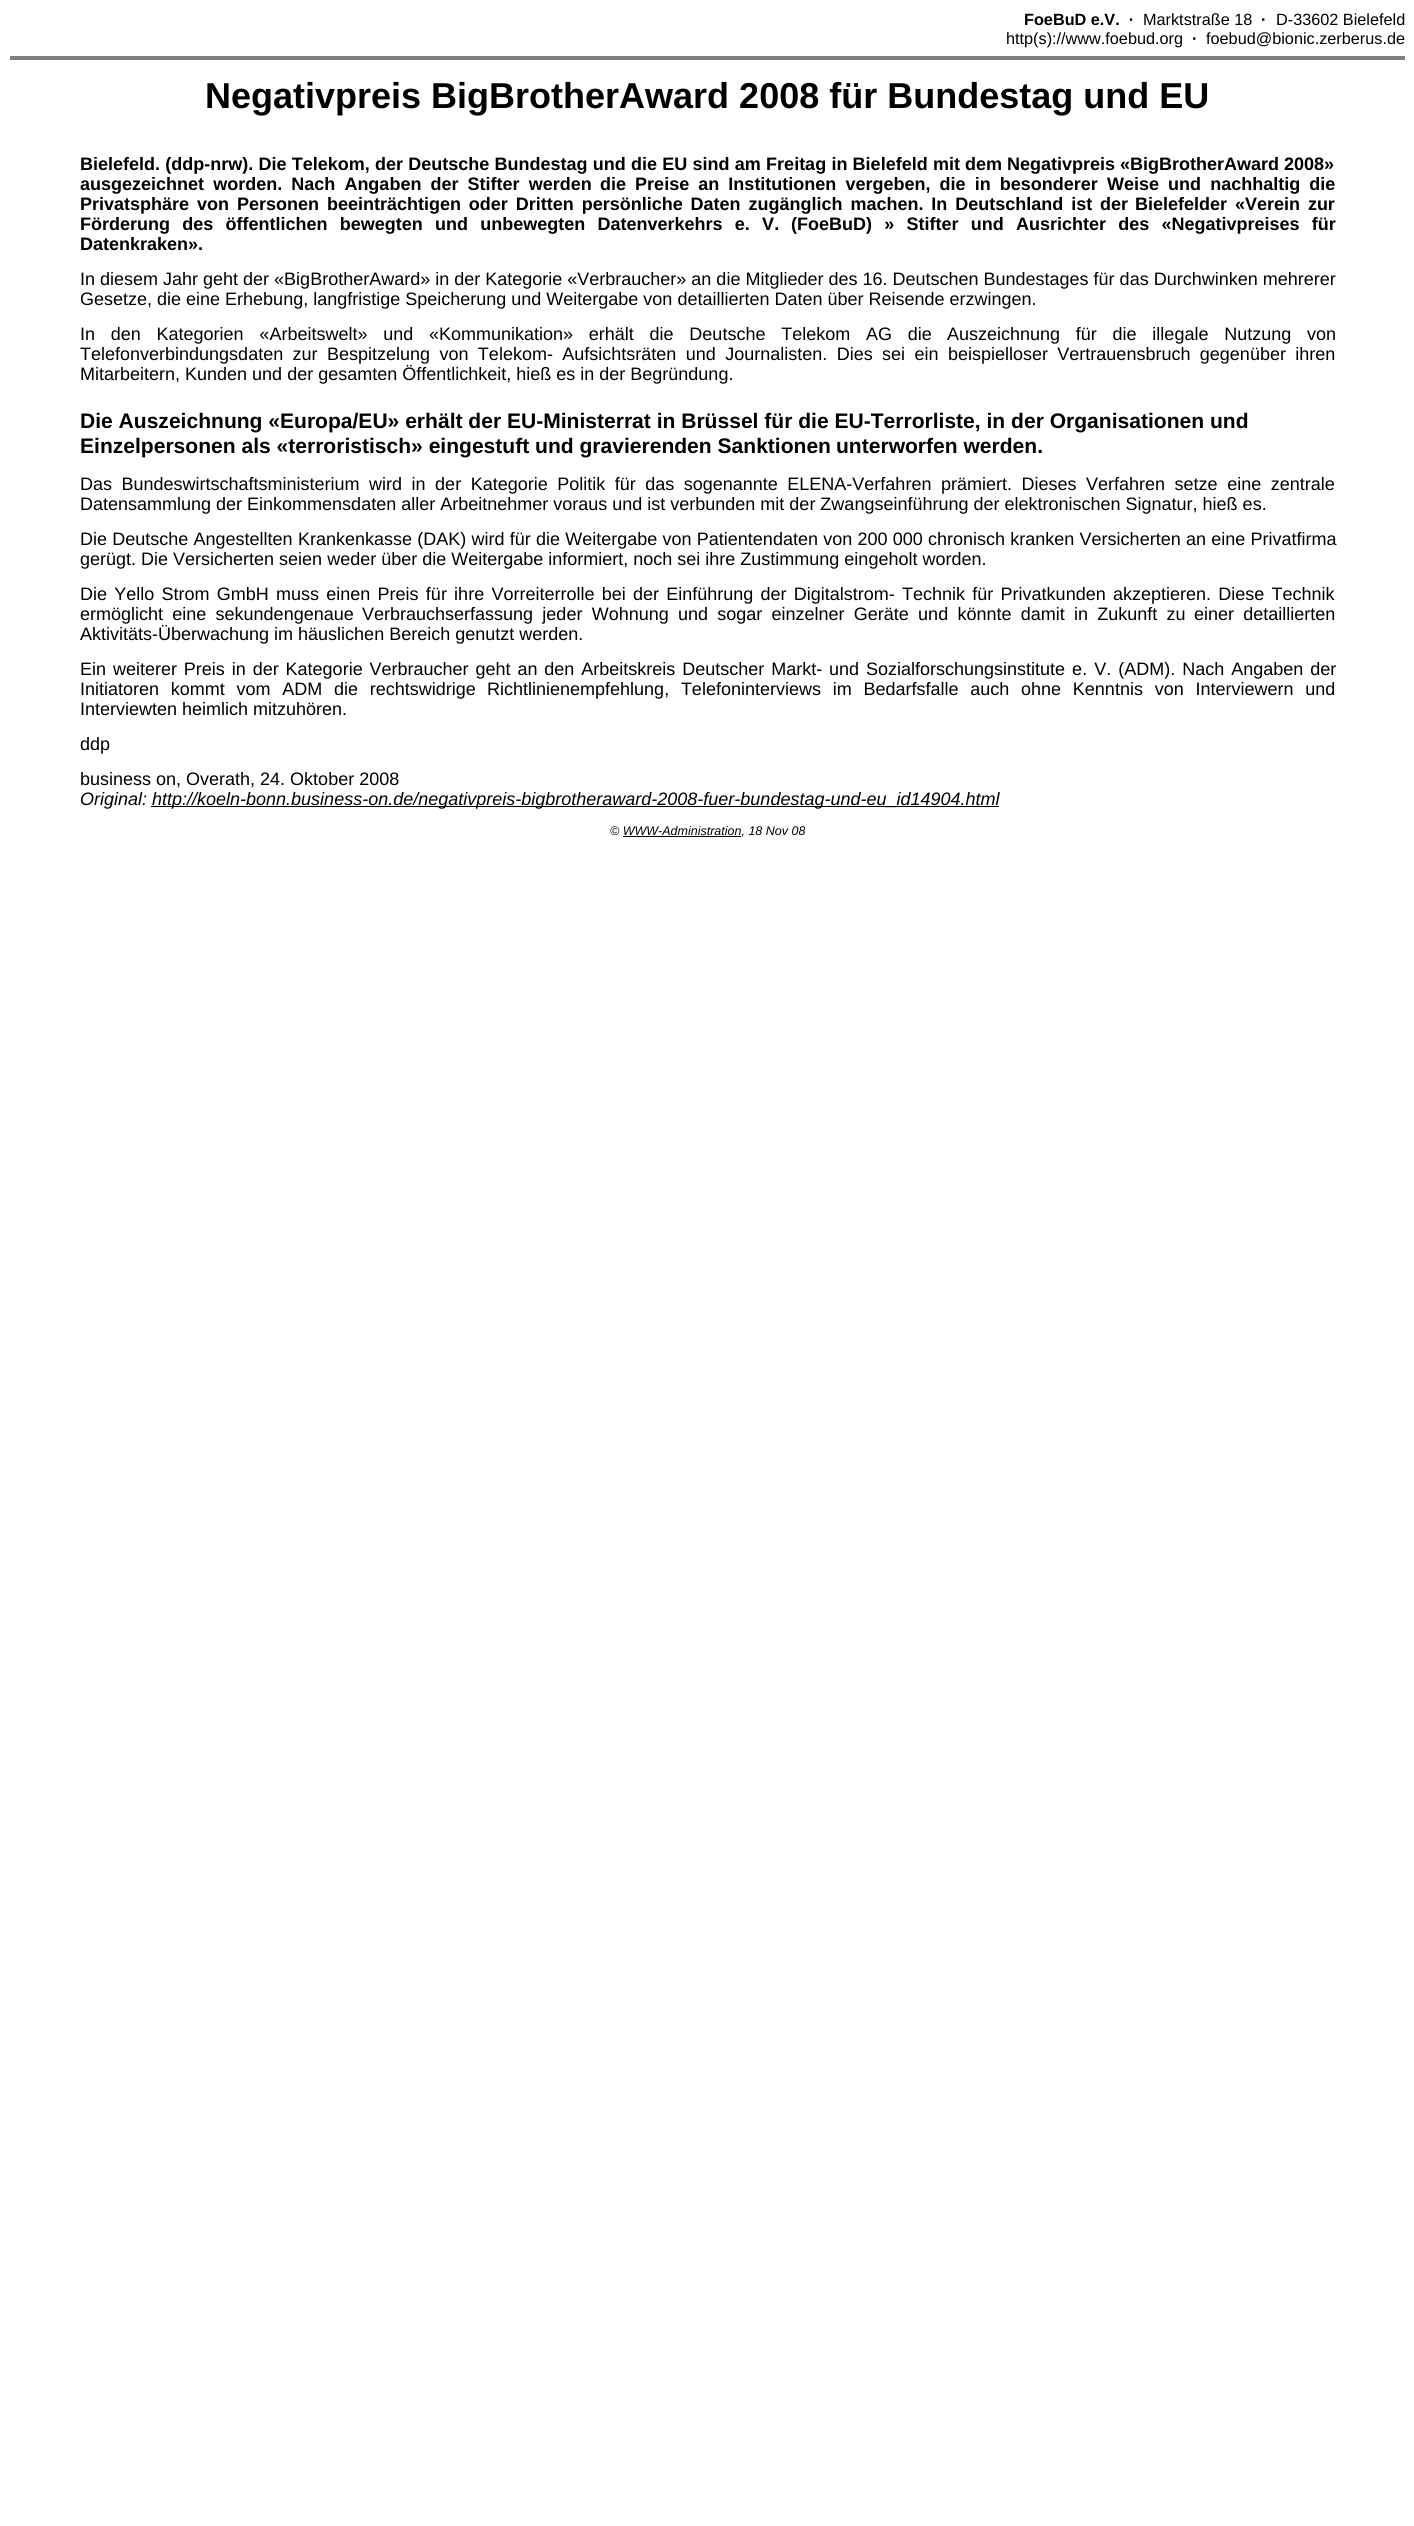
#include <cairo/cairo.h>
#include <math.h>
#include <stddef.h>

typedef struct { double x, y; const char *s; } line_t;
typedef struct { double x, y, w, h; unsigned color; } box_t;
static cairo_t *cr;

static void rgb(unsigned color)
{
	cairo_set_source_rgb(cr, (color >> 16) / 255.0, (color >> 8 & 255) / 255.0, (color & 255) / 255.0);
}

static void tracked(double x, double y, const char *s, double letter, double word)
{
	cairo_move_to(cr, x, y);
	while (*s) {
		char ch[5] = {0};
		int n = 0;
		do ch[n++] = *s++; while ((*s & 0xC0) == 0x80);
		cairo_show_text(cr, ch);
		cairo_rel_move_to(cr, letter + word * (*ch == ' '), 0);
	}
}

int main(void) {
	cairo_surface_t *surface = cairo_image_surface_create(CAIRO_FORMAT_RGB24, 1414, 2526);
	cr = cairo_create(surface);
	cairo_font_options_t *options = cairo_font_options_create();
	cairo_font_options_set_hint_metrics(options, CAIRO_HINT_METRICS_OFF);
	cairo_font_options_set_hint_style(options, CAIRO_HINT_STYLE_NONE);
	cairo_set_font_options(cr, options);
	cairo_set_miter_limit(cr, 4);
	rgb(0xffffff);
	cairo_paint(cr);
	{
		static const box_t items[] = {
			{10, 56, 1395, 4, 0x808080},
			{151, 806, 848, 1, 0x000000},
			{623, 836, 118, 1, 0x000000},
		};
		for (size_t i = 0; i < sizeof items / sizeof *items; i++) {
			rgb(items[i].color);
			cairo_rectangle(cr, items[i].x, items[i].y, items[i].w, items[i].h);
			cairo_fill(cr);
		}
	}
	cairo_select_font_face(cr, "Liberation Sans", CAIRO_FONT_SLANT_NORMAL, CAIRO_FONT_WEIGHT_BOLD);
	cairo_set_font_size(cr, 16.25);
	cairo_move_to(cr, 1024, 25);
	cairo_show_text(cr, "FoeBuD e.V.  ·");
	cairo_select_font_face(cr, "Liberation Sans", CAIRO_FONT_SLANT_NORMAL, CAIRO_FONT_WEIGHT_NORMAL);
	cairo_move_to(cr, 1143, 25);
	cairo_show_text(cr, "Marktstraße 18");
	cairo_select_font_face(cr, "Liberation Sans", CAIRO_FONT_SLANT_NORMAL, CAIRO_FONT_WEIGHT_BOLD);
	cairo_move_to(cr, 1261, 25);
	cairo_show_text(cr, "·");
	cairo_select_font_face(cr, "Liberation Sans", CAIRO_FONT_SLANT_NORMAL, CAIRO_FONT_WEIGHT_NORMAL);
	cairo_move_to(cr, 1276, 25);
	cairo_show_text(cr, "D-33602 Bielefeld");
	cairo_move_to(cr, 1006, 44);
	cairo_show_text(cr, "http(s)://www.foebud.org");
	cairo_select_font_face(cr, "Liberation Sans", CAIRO_FONT_SLANT_NORMAL, CAIRO_FONT_WEIGHT_BOLD);
	cairo_move_to(cr, 1192, 44);
	cairo_show_text(cr, "·");
	cairo_select_font_face(cr, "Liberation Sans", CAIRO_FONT_SLANT_NORMAL, CAIRO_FONT_WEIGHT_NORMAL);
	cairo_move_to(cr, 1206, 44);
	cairo_show_text(cr, "foebud@bionic.zerberus.de");
	cairo_select_font_face(cr, "Liberation Sans", CAIRO_FONT_SLANT_NORMAL, CAIRO_FONT_WEIGHT_BOLD);
	cairo_set_font_size(cr, 36);
	cairo_move_to(cr, 205, 108);
	cairo_show_text(cr, "Negativpreis BigBrotherAward 2008 für Bundestag und EU");
	cairo_set_font_size(cr, 18);
	tracked(80, 170, "Bielefeld. (ddp-nrw). Die Telekom, der Deutsche Bundestag und die EU sind am Freitag in Bielefeld mit", 0, 0.25);
	cairo_move_to(cr, 965, 170);
	cairo_show_text(cr, "dem Negativpreis «BigBrotherAward 2008»");
	tracked(80, 190, "ausgezeichnet worden. Nach Angaben der Stifter werden", 0, 4.1);
	tracked(600, 190, "die Preise an Institutionen vergeben, die in besonderer Weise und nachhaltig die", 0, 4.1);
	{
		static const line_t items[] = {
			{80, 210, "Privatsphäre von"},
			{237, 210, "Personen beeinträchtigen oder Dritten persönliche Daten zugänglich machen. In Deutschland ist der"},
			{1135, 210, "Bielefelder «Verein zur"},
		};
		for (size_t i = 0; i < sizeof items / sizeof *items; i++) {
			tracked(items[i].x, items[i].y, items[i].s, 0, 2.9);
		}
	}
	tracked(80, 230, "Förderung des öffentlichen bewegten und unbewegten Datenverkehrs e. V.", 0, 7.25);
	tracked(791, 230, "(FoeBuD) » Stifter und Ausrichter des «Negativpreises für", 0, 7.25);
	cairo_move_to(cr, 80, 250);
	cairo_show_text(cr, "Datenkraken».");
	cairo_select_font_face(cr, "Liberation Sans", CAIRO_FONT_SLANT_NORMAL, CAIRO_FONT_WEIGHT_NORMAL);
	cairo_move_to(cr, 80, 285);
	cairo_show_text(cr, "In diesem Jahr geht der «BigBrotherAward» in der Kategorie «Verbraucher» an die Mitglieder des 16. Deutschen Bundestages für das Durchwinken mehrerer");
	cairo_move_to(cr, 80, 305);
	cairo_show_text(cr, "Gesetze, die eine Erhebung, langfristige Speicherung und Weitergabe von detaillierten Daten über Reisende erzwingen.");
	tracked(80, 340, "In den Kategorien «Arbeitswelt» und «Kommunikation» erhält die Deutsche Telekom AG die", 0, 10.75);
	tracked(947, 340, "Auszeichnung für die illegale Nutzung von", 0, 10.75);
	tracked(80, 360, "Telefonverbindungsdaten zur Bespitzelung von Telekom- Aufsichtsräten und Journalisten. Dies sei ein beispielloser Vertrauensbruch gegenüber ihren", 0, 4.4);
	cairo_move_to(cr, 80, 380);
	cairo_show_text(cr, "Mitarbeitern, Kunden und der gesamten Öffentlichkeit, hieß es in der Begründung.");
	cairo_select_font_face(cr, "Liberation Sans", CAIRO_FONT_SLANT_NORMAL, CAIRO_FONT_WEIGHT_BOLD);
	cairo_set_font_size(cr, 21.05);
	{
		static const line_t items[] = {
			{80, 428, "Die Auszeichnung «Europa/EU» erhält der EU-Ministerrat in Brüssel für die EU-Terrorliste, in der Organisationen und"},
			{80, 453, "Einzelpersonen als «terroristisch» eingestuft und gravierenden Sanktionen"},
			{836, 453, "unterworfen werden."},
		};
		for (size_t i = 0; i < sizeof items / sizeof *items; i++) {
			cairo_move_to(cr, items[i].x, items[i].y);
			cairo_show_text(cr, items[i].s);
		}
	}
	cairo_select_font_face(cr, "Liberation Sans", CAIRO_FONT_SLANT_NORMAL, CAIRO_FONT_WEIGHT_NORMAL);
	cairo_set_font_size(cr, 18);
	tracked(80, 490, "Das Bundeswirtschaftsministerium wird in der Kategorie Politik für das sogenannte ELENA-Verfahren", 0, 4.5);
	tracked(941, 490, "prämiert. Dieses Verfahren setze eine zentrale", 0, 4.5);
	cairo_move_to(cr, 80, 510);
	cairo_show_text(cr, "Datensammlung der Einkommensdaten aller Arbeitnehmer voraus und ist verbunden mit der Zwangseinführung der elektronischen Signatur, hieß es.");
	tracked(80, 545, "Die Deutsche Angestellten Krankenkasse (DAK) wird für die Weitergabe von Patientendaten von 200 000 chronisch kranken Versicherten an eine Privatfirma", 0, 0.25);
	cairo_move_to(cr, 80, 565);
	cairo_show_text(cr, "gerügt. Die Versicherten seien weder über die Weitergabe informiert, noch sei ihre Zustimmung eingeholt worden.");
	tracked(80, 600, "Die Yello Strom GmbH muss einen Preis für ihre Vorreiterrolle bei der Einführung der Digitalstrom- Technik für Privatkunden akzeptieren. Diese Technik", 0, 2.25);
	tracked(80, 620, "ermöglicht eine sekundengenaue", 0, 4.25);
	tracked(362, 620, "Verbrauchserfassung jeder Wohnung und sogar einzelner Geräte und könnte damit in Zukunft zu", 0, 4.25);
	tracked(1194, 620, "einer detaillierten", 0, 4.1);
	cairo_move_to(cr, 80, 640);
	cairo_show_text(cr, "Aktivitäts-Überwachung im häuslichen Bereich genutzt werden.");
	tracked(80, 675, "Ein weiterer Preis in der Kategorie Verbraucher geht an den Arbeitskreis Deutscher Markt- und", 0, 1.9);
	tracked(866, 675, "Sozialforschungsinstitute e. V. (ADM). Nach Angaben der", 0, 2);
	tracked(80, 695, "Initiatoren kommt vom ADM die rechtswidrige", 0, 6.75);
	tracked(487, 695, "Richtlinienempfehlung, Telefoninterviews im Bedarfsfalle auch ohne Kenntnis von Interviewern und", 0, 6.75);
	{
		static const line_t items[] = {
			{80, 715, "Interviewten heimlich mitzuhören."},
			{80, 750, "ddp"},
			{80, 785, "business on, Overath, 24. Oktober 2008"},
		};
		for (size_t i = 0; i < sizeof items / sizeof *items; i++) {
			cairo_move_to(cr, items[i].x, items[i].y);
			cairo_show_text(cr, items[i].s);
		}
	}
	cairo_select_font_face(cr, "Liberation Sans", CAIRO_FONT_SLANT_ITALIC, CAIRO_FONT_WEIGHT_NORMAL);
	cairo_move_to(cr, 80, 805);
	cairo_show_text(cr, "Original:");
	cairo_move_to(cr, 152, 805);
	cairo_show_text(cr, "http://koeln-bonn.business-on.de/negativpreis-bigbrotheraward-2008-fuer-bundestag-und-eu_id14904.html");
	cairo_set_font_size(cr, 12.5);
	cairo_move_to(cr, 610, 835);
	cairo_show_text(cr, "© WWW-Administration, 18 Nov 08");
	cairo_surface_write_to_png(surface, "page.png");
	cairo_font_options_destroy(options);
	cairo_destroy(cr);
	cairo_surface_destroy(surface);
	return 0;
}
